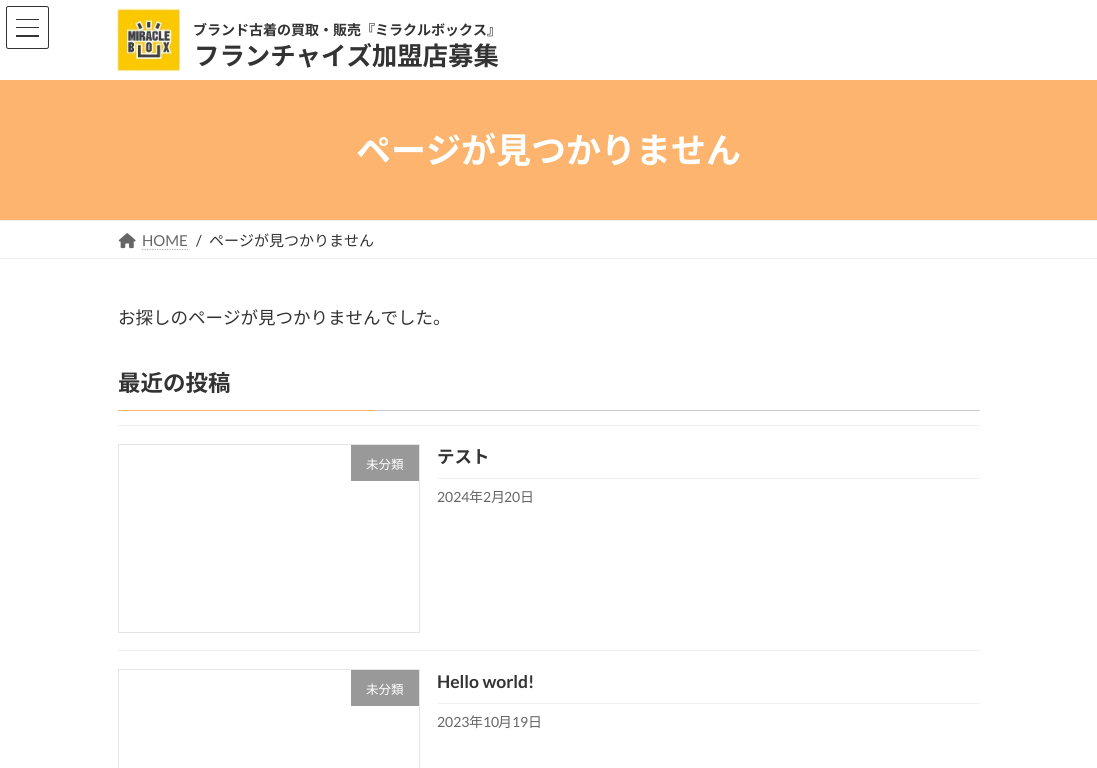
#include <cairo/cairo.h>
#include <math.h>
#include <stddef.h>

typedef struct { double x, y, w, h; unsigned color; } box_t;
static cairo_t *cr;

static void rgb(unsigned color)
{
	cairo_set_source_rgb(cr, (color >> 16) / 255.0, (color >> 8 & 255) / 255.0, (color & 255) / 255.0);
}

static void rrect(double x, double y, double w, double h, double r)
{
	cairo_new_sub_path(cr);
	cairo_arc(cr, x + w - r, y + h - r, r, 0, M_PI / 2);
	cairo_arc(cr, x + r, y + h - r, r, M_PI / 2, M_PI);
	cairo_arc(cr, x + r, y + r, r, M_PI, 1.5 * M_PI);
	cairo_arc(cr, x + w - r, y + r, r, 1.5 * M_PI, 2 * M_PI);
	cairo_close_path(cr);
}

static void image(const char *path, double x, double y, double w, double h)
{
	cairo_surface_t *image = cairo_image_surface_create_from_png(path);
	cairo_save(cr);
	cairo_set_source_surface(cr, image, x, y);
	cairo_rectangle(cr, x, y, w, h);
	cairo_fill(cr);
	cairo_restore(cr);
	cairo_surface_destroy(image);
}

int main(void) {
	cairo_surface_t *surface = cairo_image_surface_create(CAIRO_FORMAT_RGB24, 1097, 768);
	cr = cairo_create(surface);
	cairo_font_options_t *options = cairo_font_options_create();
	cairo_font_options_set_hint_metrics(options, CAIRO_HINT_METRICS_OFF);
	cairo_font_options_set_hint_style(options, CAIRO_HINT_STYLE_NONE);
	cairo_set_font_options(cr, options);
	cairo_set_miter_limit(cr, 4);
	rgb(0xffffff);
	cairo_paint(cr);
	{
		static const box_t items[] = {
			{16, 19, 23, 1, 0x333333},
			{16, 27, 23, 1, 0x333333},
			{16, 35, 23, 2, 0x333333},
		};
		for (size_t i = 0; i < sizeof items / sizeof *items; i++) {
			rgb(items[i].color);
			cairo_rectangle(cr, items[i].x, items[i].y, items[i].w, items[i].h);
			cairo_fill(cr);
		}
	}
	rrect(6.5, 6.5, 42, 42, 2);
	cairo_set_line_width(cr, 1);
	cairo_stroke(cr);
	image("img/1.png", 117, 8, 63, 64);
	{
		static const box_t items[] = {
			{0, 80, 1097, 140, 0xfcb46e},
			{0, 220, 1097, 1, 0xf0f0f0},
			{0, 258, 1097, 1, 0xf0f0f0},
		};
		for (size_t i = 0; i < sizeof items / sizeof *items; i++) {
			rgb(items[i].color);
			cairo_rectangle(cr, items[i].x, items[i].y, items[i].w, items[i].h);
			cairo_fill(cr);
		}
	}
	image("img/2.png", 118, 233, 18, 16);
	cairo_new_path(cr);
	cairo_move_to(cr, 142, 249.5);
	cairo_line_to(cr, 188, 249.5);
	rgb(0xb3b3b3);
	cairo_set_line_width(cr, 1.2);
	cairo_set_dash(cr, (double[]){1.25, 1.25}, 2, 0);
	cairo_stroke(cr);
	{
		static const box_t items[] = {
			{376, 410, 604, 1, 0xcccccc},
			{118, 410, 258, 1, 0xfcb46e},
			{118, 425, 862, 1, 0xf0f0f0},
			{118, 650, 862, 1, 0xf0f0f0},
		};
		for (size_t i = 0; i < sizeof items / sizeof *items; i++) {
			rgb(items[i].color);
			cairo_rectangle(cr, items[i].x, items[i].y, items[i].w, items[i].h);
			cairo_fill(cr);
		}
	}
	cairo_rectangle(cr, 118.5, 444.5, 301, 188);
	rgb(0xe5e5e5);
	cairo_set_line_width(cr, 1);
	cairo_set_dash(cr, NULL, 0, 0);
	cairo_stroke(cr);
	rgb(0x999999);
	cairo_rectangle(cr, 351, 445, 68, 36);
	cairo_fill(cr);
	rgb(0xf0f0f0);
	cairo_rectangle(cr, 438, 478, 542, 1);
	cairo_fill(cr);
	cairo_rectangle(cr, 118.5, 669.5, 301, 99);
	rgb(0xe5e5e5);
	cairo_stroke(cr);
	rgb(0x999999);
	cairo_rectangle(cr, 351, 670, 68, 36);
	cairo_fill(cr);
	rgb(0xf0f0f0);
	cairo_rectangle(cr, 438, 703, 542, 1);
	cairo_fill(cr);
	cairo_select_font_face(cr, "Noto Sans JP", CAIRO_FONT_SLANT_NORMAL, CAIRO_FONT_WEIGHT_BOLD);
	cairo_set_font_size(cr, 14);
	rgb(0x333333);
	cairo_move_to(cr, 193, 35);
	cairo_show_text(cr, "ブランド古着の買取・販売『ミラクルボックス』");
	cairo_set_font_size(cr, 25.4);
	cairo_move_to(cr, 194, 65);
	cairo_show_text(cr, "フランチャイズ加盟店募集");
	cairo_set_font_size(cr, 35);
	rgb(0xffffff);
	cairo_move_to(cr, 356, 163);
	cairo_show_text(cr, "ページが見つかりません");
	cairo_select_font_face(cr, "Lato", CAIRO_FONT_SLANT_NORMAL, CAIRO_FONT_WEIGHT_NORMAL);
	cairo_set_font_size(cr, 15);
	rgb(0x666666);
	cairo_move_to(cr, 142, 246);
	cairo_show_text(cr, "HOME");
	rgb(0x333333);
	cairo_move_to(cr, 196, 246);
	cairo_show_text(cr, "/");
	cairo_select_font_face(cr, "Noto Sans JP", CAIRO_FONT_SLANT_NORMAL, CAIRO_FONT_WEIGHT_NORMAL);
	cairo_move_to(cr, 209, 246);
	cairo_show_text(cr, "ページが見つかりません");
	cairo_set_font_size(cr, 17.5);
	cairo_move_to(cr, 118, 324);
	cairo_show_text(cr, "お探しのページが見つかりませんでした。");
	cairo_select_font_face(cr, "Noto Sans JP", CAIRO_FONT_SLANT_NORMAL, CAIRO_FONT_WEIGHT_BOLD);
	cairo_set_font_size(cr, 22.5);
	cairo_move_to(cr, 118, 391);
	cairo_show_text(cr, "最近の投稿");
	cairo_select_font_face(cr, "Noto Sans JP", CAIRO_FONT_SLANT_NORMAL, CAIRO_FONT_WEIGHT_NORMAL);
	cairo_set_font_size(cr, 12.5);
	rgb(0xffffff);
	cairo_move_to(cr, 366, 469);
	cairo_show_text(cr, "未分類");
	cairo_select_font_face(cr, "Noto Sans JP", CAIRO_FONT_SLANT_NORMAL, CAIRO_FONT_WEIGHT_BOLD);
	cairo_set_font_size(cr, 17.5);
	rgb(0x333333);
	cairo_move_to(cr, 437, 463);
	cairo_show_text(cr, "テスト");
	cairo_select_font_face(cr, "Lato", CAIRO_FONT_SLANT_NORMAL, CAIRO_FONT_WEIGHT_NORMAL);
	cairo_set_font_size(cr, 14);
	rgb(0x666666);
	cairo_move_to(cr, 437, 502);
	cairo_show_text(cr, "2024");
	cairo_select_font_face(cr, "Noto Sans JP", CAIRO_FONT_SLANT_NORMAL, CAIRO_FONT_WEIGHT_NORMAL);
	cairo_move_to(cr, 469, 502);
	cairo_show_text(cr, "年");
	cairo_select_font_face(cr, "Lato", CAIRO_FONT_SLANT_NORMAL, CAIRO_FONT_WEIGHT_NORMAL);
	cairo_move_to(cr, 483, 502);
	cairo_show_text(cr, "2");
	cairo_select_font_face(cr, "Noto Sans JP", CAIRO_FONT_SLANT_NORMAL, CAIRO_FONT_WEIGHT_NORMAL);
	cairo_move_to(cr, 491, 502);
	cairo_show_text(cr, "月");
	cairo_select_font_face(cr, "Lato", CAIRO_FONT_SLANT_NORMAL, CAIRO_FONT_WEIGHT_NORMAL);
	cairo_move_to(cr, 504, 502);
	cairo_show_text(cr, "20");
	cairo_select_font_face(cr, "Noto Sans JP", CAIRO_FONT_SLANT_NORMAL, CAIRO_FONT_WEIGHT_NORMAL);
	cairo_move_to(cr, 520, 502);
	cairo_show_text(cr, "日");
	cairo_set_font_size(cr, 12.5);
	rgb(0xffffff);
	cairo_move_to(cr, 366, 694);
	cairo_show_text(cr, "未分類");
	cairo_select_font_face(cr, "Lato", CAIRO_FONT_SLANT_NORMAL, CAIRO_FONT_WEIGHT_BOLD);
	cairo_set_font_size(cr, 17.5);
	rgb(0x333333);
	cairo_move_to(cr, 437, 688);
	cairo_show_text(cr, "Hello world!");
	cairo_select_font_face(cr, "Lato", CAIRO_FONT_SLANT_NORMAL, CAIRO_FONT_WEIGHT_NORMAL);
	cairo_set_font_size(cr, 14);
	rgb(0x666666);
	cairo_move_to(cr, 437, 727);
	cairo_show_text(cr, "2023");
	cairo_select_font_face(cr, "Noto Sans JP", CAIRO_FONT_SLANT_NORMAL, CAIRO_FONT_WEIGHT_NORMAL);
	cairo_move_to(cr, 469, 727);
	cairo_show_text(cr, "年");
	cairo_select_font_face(cr, "Lato", CAIRO_FONT_SLANT_NORMAL, CAIRO_FONT_WEIGHT_NORMAL);
	cairo_move_to(cr, 483, 727);
	cairo_show_text(cr, "10");
	cairo_select_font_face(cr, "Noto Sans JP", CAIRO_FONT_SLANT_NORMAL, CAIRO_FONT_WEIGHT_NORMAL);
	cairo_move_to(cr, 498, 727);
	cairo_show_text(cr, "月");
	cairo_select_font_face(cr, "Lato", CAIRO_FONT_SLANT_NORMAL, CAIRO_FONT_WEIGHT_NORMAL);
	cairo_move_to(cr, 512, 727);
	cairo_show_text(cr, "19");
	cairo_select_font_face(cr, "Noto Sans JP", CAIRO_FONT_SLANT_NORMAL, CAIRO_FONT_WEIGHT_NORMAL);
	cairo_move_to(cr, 528, 727);
	cairo_show_text(cr, "日");
	cairo_surface_write_to_png(surface, "page.png");
	cairo_font_options_destroy(options);
	cairo_destroy(cr);
	cairo_surface_destroy(surface);
	return 0;
}
